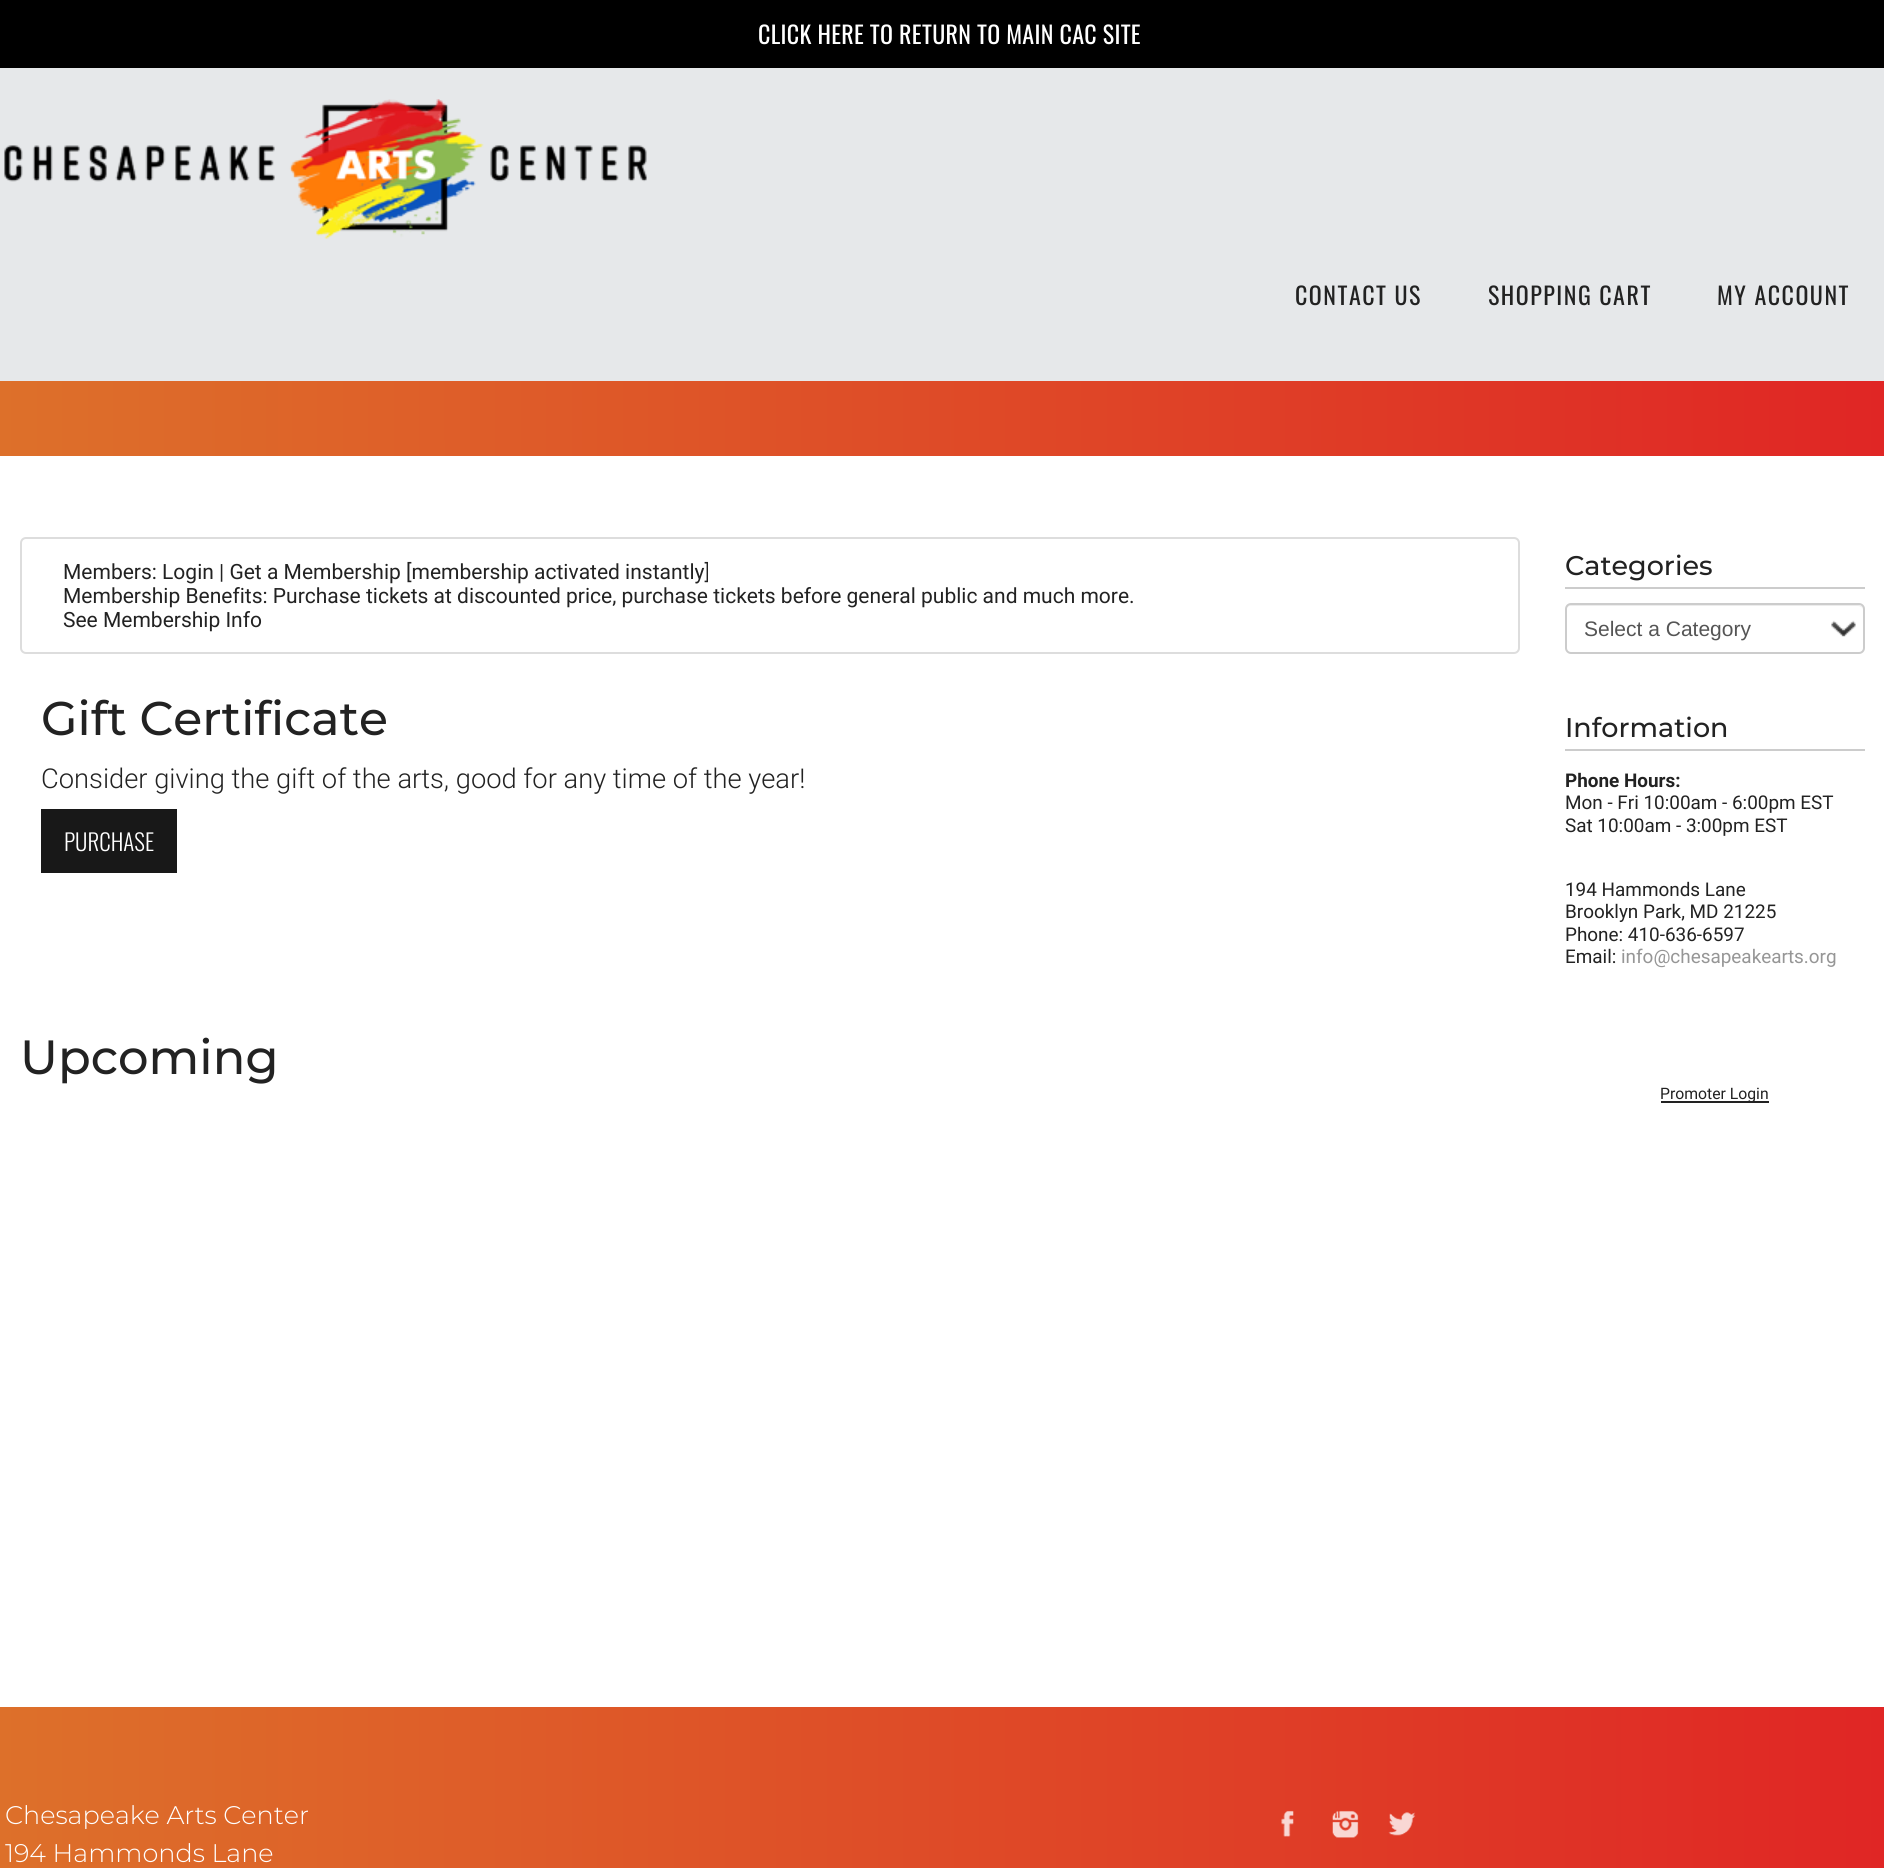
#include <cairo/cairo.h>
#include <math.h>
#include <stddef.h>

typedef struct { double x, y; const char *s; } line_t;
static cairo_t *cr;

static void rgb(unsigned color)
{
	cairo_set_source_rgb(cr, (color >> 16) / 255.0, (color >> 8 & 255) / 255.0, (color & 255) / 255.0);
}

static void tracked(double x, double y, const char *s, double letter, double word)
{
	cairo_move_to(cr, x, y);
	while (*s) {
		char ch[5] = {0};
		int n = 0;
		do ch[n++] = *s++; while ((*s & 0xC0) == 0x80);
		cairo_show_text(cr, ch);
		cairo_rel_move_to(cr, letter + word * (*ch == ' '), 0);
	}
}

static void rrect(double x, double y, double w, double h, double r)
{
	cairo_new_sub_path(cr);
	cairo_arc(cr, x + w - r, y + h - r, r, 0, M_PI / 2);
	cairo_arc(cr, x + r, y + h - r, r, M_PI / 2, M_PI);
	cairo_arc(cr, x + r, y + r, r, M_PI, 1.5 * M_PI);
	cairo_arc(cr, x + w - r, y + r, r, 1.5 * M_PI, 2 * M_PI);
	cairo_close_path(cr);
}

static void image(const char *path, double x, double y, double w, double h)
{
	cairo_surface_t *image = cairo_image_surface_create_from_png(path);
	cairo_save(cr);
	cairo_set_source_surface(cr, image, x, y);
	cairo_rectangle(cr, x, y, w, h);
	cairo_fill(cr);
	cairo_restore(cr);
	cairo_surface_destroy(image);
}

int main(void) {
	cairo_surface_t *surface = cairo_image_surface_create(CAIRO_FORMAT_RGB24, 1884, 1868);
	cr = cairo_create(surface);
	cairo_font_options_t *options = cairo_font_options_create();
	cairo_font_options_set_hint_metrics(options, CAIRO_HINT_METRICS_OFF);
	cairo_font_options_set_hint_style(options, CAIRO_HINT_STYLE_NONE);
	cairo_set_font_options(cr, options);
	cairo_set_miter_limit(cr, 4);
	cairo_pattern_t *gradient;
	rgb(0xffffff);
	cairo_paint(cr);
	rgb(0x000000);
	cairo_rectangle(cr, 0, 0, 1884, 68);
	cairo_fill(cr);
	rgb(0xe6e8ea);
	cairo_rectangle(cr, 0, 68, 1884, 313);
	cairo_fill(cr);
	image("img/1.png", 4, 99, 643, 140);
	gradient = cairo_pattern_create_linear(0, 419, 1884, 418);
	cairo_pattern_add_color_stop_rgba(gradient, 0, 0.867, 0.439, 0.165, 1);
	cairo_pattern_add_color_stop_rgba(gradient, 1, 0.878, 0.149, 0.145, 1);
	cairo_set_source(cr, gradient);
	cairo_pattern_destroy(gradient);
	cairo_rectangle(cr, 0, 381, 1884, 75);
	cairo_fill(cr);
	rrect(21, 538, 1498, 115, 5);
	rgb(0xdddddd);
	cairo_stroke(cr);
	rgb(0x181818);
	cairo_rectangle(cr, 41, 809, 136, 64);
	cairo_fill(cr);
	rgb(0xcccccc);
	cairo_rectangle(cr, 1565, 587, 300, 2);
	cairo_fill(cr);
	image("img/2.png", 1831, 620, 25, 17);
	rgb(0xececec);
	cairo_new_path(cr);
	cairo_move_to(cr, 1570, 606);
	cairo_line_to(cr, 1858, 606);
	cairo_curve_to(cr, 1861, 606, 1863, 608, 1863, 610);
	cairo_curve_to(cr, 1863, 607, 1861, 605, 1858, 605);
	cairo_line_to(cr, 1571, 605);
	cairo_curve_to(cr, 1568, 605, 1566, 607, 1566, 610);
	cairo_curve_to(cr, 1566, 608, 1568, 606, 1570, 606);
	cairo_close_path(cr);
	cairo_fill(cr);
	rrect(1566, 604, 298, 49, 5);
	rgb(0xcccccc);
	cairo_stroke(cr);
	cairo_rectangle(cr, 1565, 749, 300, 2);
	cairo_fill(cr);
	rgb(0x222222);
	cairo_rectangle(cr, 1661, 1101, 108, 2);
	cairo_fill(cr);
	gradient = cairo_pattern_create_linear(0, 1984, 1884, 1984);
	cairo_pattern_add_color_stop_rgba(gradient, 0, 0.867, 0.439, 0.165, 1);
	cairo_pattern_add_color_stop_rgba(gradient, 1, 0.878, 0.149, 0.145, 1);
	cairo_set_source(cr, gradient);
	cairo_pattern_destroy(gradient);
	cairo_rectangle(cr, 0, 1707, 1884, 161);
	cairo_fill(cr);
	image("img/3.png", 1281, 1810, 13, 27);
	image("img/4.png", 1332, 1810, 27, 28);
	image("img/5.png", 1388, 1812, 28, 24);
	cairo_select_font_face(cr, "Oswald", CAIRO_FONT_SLANT_NORMAL, CAIRO_FONT_WEIGHT_NORMAL);
	cairo_set_font_size(cr, 24);
	rgb(0xffffff);
	tracked(758, 44, "CLICK HERE TO RETURN TO MAIN CAC SITE", 0.3, 0);
	rgb(0x222222);
	{
		static const line_t items[] = {
			{1295, 305, "CONTACT US"},
			{1488, 305, "SHOPPING CART"},
			{1717, 305, "MY ACCOUNT"},
		};
		for (size_t i = 0; i < sizeof items / sizeof *items; i++) {
			tracked(items[i].x, items[i].y, items[i].s, 1.5, 0);
		}
	}
	cairo_select_font_face(cr, "Roboto", CAIRO_FONT_SLANT_NORMAL, CAIRO_FONT_WEIGHT_NORMAL);
	cairo_set_font_size(cr, 21);
	{
		static const line_t items[] = {
			{63, 579, "Members: Login | Get a Membership [membership activated instantly]"},
			{63, 603, "Membership Benefits: Purchase tickets at discounted price, purchase tickets before general public and much more."},
			{63, 627, "See Membership Info"},
		};
		for (size_t i = 0; i < sizeof items / sizeof *items; i++) {
			cairo_move_to(cr, items[i].x, items[i].y);
			cairo_show_text(cr, items[i].s);
		}
	}
	cairo_select_font_face(cr, "Montserrat Medium", CAIRO_FONT_SLANT_NORMAL, CAIRO_FONT_WEIGHT_NORMAL);
	cairo_set_font_size(cr, 47.25);
	cairo_move_to(cr, 41, 735);
	cairo_show_text(cr, "Gift Certificate");
	cairo_select_font_face(cr, "Roboto Light", CAIRO_FONT_SLANT_NORMAL, CAIRO_FONT_WEIGHT_NORMAL);
	cairo_set_font_size(cr, 27.3);
	cairo_move_to(cr, 41, 788);
	cairo_show_text(cr, "Consider giving the gift of the arts, good for any time of the year!");
	cairo_select_font_face(cr, "Oswald Light", CAIRO_FONT_SLANT_NORMAL, CAIRO_FONT_WEIGHT_NORMAL);
	cairo_set_font_size(cr, 23);
	rgb(0xffffff);
	cairo_move_to(cr, 64, 851);
	cairo_show_text(cr, "PURCHASE");
	cairo_select_font_face(cr, "Montserrat Medium", CAIRO_FONT_SLANT_NORMAL, CAIRO_FONT_WEIGHT_NORMAL);
	cairo_set_font_size(cr, 48);
	rgb(0x222222);
	cairo_move_to(cr, 20, 1074);
	cairo_show_text(cr, "Upcoming");
	cairo_set_font_size(cr, 27);
	cairo_move_to(cr, 1565, 575);
	cairo_show_text(cr, "Categories");
	cairo_select_font_face(cr, "Liberation Sans", CAIRO_FONT_SLANT_NORMAL, CAIRO_FONT_WEIGHT_NORMAL);
	cairo_set_font_size(cr, 21);
	rgb(0x555555);
	cairo_move_to(cr, 1584, 636);
	cairo_show_text(cr, "Select a Category");
	cairo_select_font_face(cr, "Montserrat Medium", CAIRO_FONT_SLANT_NORMAL, CAIRO_FONT_WEIGHT_NORMAL);
	cairo_set_font_size(cr, 27);
	rgb(0x222222);
	cairo_move_to(cr, 1565, 737);
	cairo_show_text(cr, "Information");
	cairo_select_font_face(cr, "Roboto", CAIRO_FONT_SLANT_NORMAL, CAIRO_FONT_WEIGHT_BOLD);
	cairo_set_font_size(cr, 18.9);
	cairo_move_to(cr, 1565, 787);
	cairo_show_text(cr, "Phone Hours:");
	cairo_select_font_face(cr, "Roboto", CAIRO_FONT_SLANT_NORMAL, CAIRO_FONT_WEIGHT_NORMAL);
	{
		static const line_t items[] = {
			{1565, 809, "Mon - Fri 10:00am - 6:00pm EST"},
			{1565, 832, "Sat 10:00am - 3:00pm EST"},
			{1565, 896, "194 Hammonds Lane"},
			{1565, 918, "Brooklyn Park, MD 21225"},
			{1565, 941, "Phone: 410-636-6597"},
			{1565, 963, "Email:"},
		};
		for (size_t i = 0; i < sizeof items / sizeof *items; i++) {
			cairo_move_to(cr, items[i].x, items[i].y);
			cairo_show_text(cr, items[i].s);
		}
	}
	rgb(0x969696);
	cairo_move_to(cr, 1621, 963);
	cairo_show_text(cr, "info@chesapeakearts.org");
	cairo_set_font_size(cr, 15.75);
	rgb(0x222222);
	cairo_move_to(cr, 1660, 1099);
	cairo_show_text(cr, "Promoter Login");
	cairo_select_font_face(cr, "Montserrat Light", CAIRO_FONT_SLANT_NORMAL, CAIRO_FONT_WEIGHT_NORMAL);
	cairo_set_font_size(cr, 25.5);
	rgb(0xffffff);
	cairo_move_to(cr, 5, 1824);
	cairo_show_text(cr, "Chesapeake Arts Center");
	cairo_move_to(cr, 5, 1862);
	cairo_show_text(cr, "194 Hammonds Lane");
	cairo_surface_write_to_png(surface, "page.png");
	cairo_font_options_destroy(options);
	cairo_destroy(cr);
	cairo_surface_destroy(surface);
	return 0;
}
